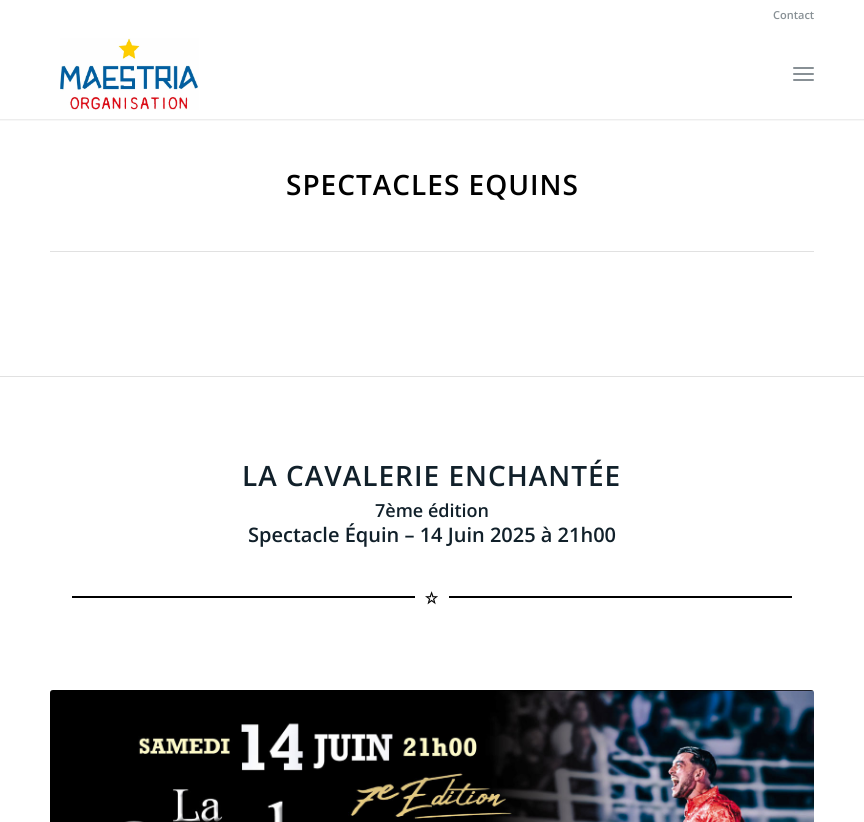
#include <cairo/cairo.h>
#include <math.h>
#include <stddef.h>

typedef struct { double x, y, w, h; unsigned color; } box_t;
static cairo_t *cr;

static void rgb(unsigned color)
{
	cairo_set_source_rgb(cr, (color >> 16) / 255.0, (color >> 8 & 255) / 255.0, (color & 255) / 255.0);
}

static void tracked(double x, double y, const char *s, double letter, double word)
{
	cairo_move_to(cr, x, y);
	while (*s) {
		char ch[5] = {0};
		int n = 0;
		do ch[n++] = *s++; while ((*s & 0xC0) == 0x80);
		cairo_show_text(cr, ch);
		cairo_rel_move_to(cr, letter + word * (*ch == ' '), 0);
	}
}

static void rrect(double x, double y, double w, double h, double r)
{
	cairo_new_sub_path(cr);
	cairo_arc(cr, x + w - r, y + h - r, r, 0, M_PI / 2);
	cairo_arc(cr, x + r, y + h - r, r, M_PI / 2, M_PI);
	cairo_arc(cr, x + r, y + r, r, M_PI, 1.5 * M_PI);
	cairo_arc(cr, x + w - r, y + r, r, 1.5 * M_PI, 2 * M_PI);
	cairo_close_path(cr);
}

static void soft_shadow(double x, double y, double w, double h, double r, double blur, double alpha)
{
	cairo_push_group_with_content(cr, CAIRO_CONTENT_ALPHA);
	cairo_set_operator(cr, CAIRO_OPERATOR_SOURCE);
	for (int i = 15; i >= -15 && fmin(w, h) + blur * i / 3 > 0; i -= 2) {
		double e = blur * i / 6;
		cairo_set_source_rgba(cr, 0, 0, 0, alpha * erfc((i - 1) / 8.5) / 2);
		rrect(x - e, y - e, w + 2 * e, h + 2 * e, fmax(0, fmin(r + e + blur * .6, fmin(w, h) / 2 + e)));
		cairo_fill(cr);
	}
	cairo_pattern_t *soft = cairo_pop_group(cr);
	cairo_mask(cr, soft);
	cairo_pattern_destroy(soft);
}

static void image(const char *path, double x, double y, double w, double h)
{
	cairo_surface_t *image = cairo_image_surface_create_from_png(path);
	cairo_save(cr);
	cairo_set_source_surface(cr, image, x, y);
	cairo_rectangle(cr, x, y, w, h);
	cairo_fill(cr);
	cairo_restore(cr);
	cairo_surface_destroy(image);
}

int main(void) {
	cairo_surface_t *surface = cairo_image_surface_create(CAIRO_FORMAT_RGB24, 864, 822);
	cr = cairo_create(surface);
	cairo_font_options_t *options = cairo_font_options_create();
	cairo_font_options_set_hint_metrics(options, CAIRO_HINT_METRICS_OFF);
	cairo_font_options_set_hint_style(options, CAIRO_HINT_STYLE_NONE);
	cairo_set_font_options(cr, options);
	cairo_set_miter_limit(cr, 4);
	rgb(0xffffff);
	cairo_paint(cr);
	cairo_save(cr);
	cairo_rectangle(cr, 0, 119, 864, 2);
	cairo_clip(cr);
	rgb(0x000000);
	soft_shadow(-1, -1, 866, 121, 0, 1, 0.1);
	cairo_restore(cr);
	image("img/1.png", 60, 38, 139, 72);
	rgb(0x889095);
	rrect(793, 73, 21, 2, 1);
	cairo_fill(cr);
	rrect(793, 67, 21, 2, 1);
	cairo_fill(cr);
	rrect(793, 79, 21, 2, 1);
	cairo_fill(cr);
	{
		static const box_t items[] = {
			{50, 251, 764, 1, 0xe1e1e1},
			{0, 376, 864, 1, 0xe1e1e1},
			{72, 596, 343, 2, 0x000000},
		};
		for (size_t i = 0; i < sizeof items / sizeof *items; i++) {
			rgb(items[i].color);
			cairo_rectangle(cr, items[i].x, items[i].y, items[i].w, items[i].h);
			cairo_fill(cr);
		}
	}
	image("img/2.png", 425, 591, 13, 14);
	cairo_rectangle(cr, 449, 596, 343, 2);
	cairo_fill(cr);
	image("img/3.png", 50, 690, 764, 132);
	cairo_select_font_face(cr, "Open Sans SemiBold", CAIRO_FONT_SLANT_NORMAL, CAIRO_FONT_WEIGHT_NORMAL);
	cairo_set_font_size(cr, 11);
	rgb(0x889095);
	cairo_move_to(cr, 773, 19);
	cairo_show_text(cr, "Contact");
	cairo_set_font_size(cr, 28);
	rgb(0x000000);
	tracked(286, 195, "SPECTACLES EQUINS", 1, 0);
	rgb(0x11202a);
	tracked(242, 486, "LA CAVALERIE ENCHANTÉE", 1, 0);
	cairo_set_font_size(cr, 18);
	cairo_move_to(cr, 375, 517);
	cairo_show_text(cr, "7ème édition");
	cairo_set_font_size(cr, 20);
	cairo_move_to(cr, 248, 542);
	cairo_show_text(cr, "Spectacle Équin – 14 Juin 2025 à 21h00");
	cairo_surface_write_to_png(surface, "page.png");
	cairo_font_options_destroy(options);
	cairo_destroy(cr);
	cairo_surface_destroy(surface);
	return 0;
}
